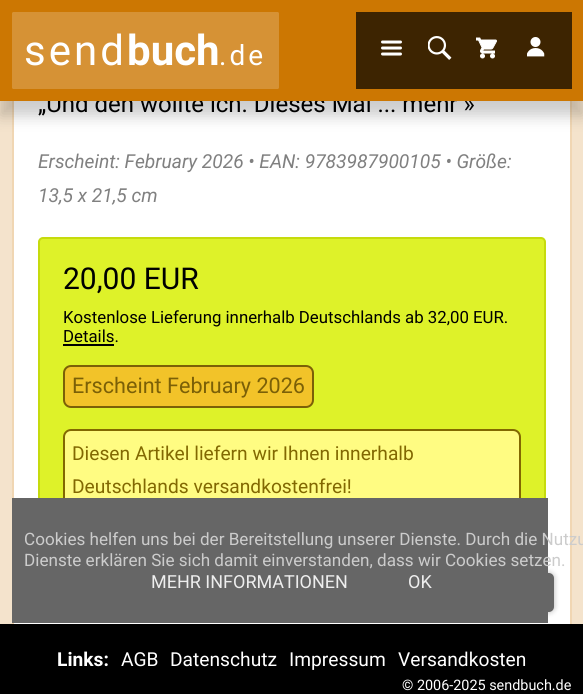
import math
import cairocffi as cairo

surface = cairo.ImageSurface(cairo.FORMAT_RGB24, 583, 694)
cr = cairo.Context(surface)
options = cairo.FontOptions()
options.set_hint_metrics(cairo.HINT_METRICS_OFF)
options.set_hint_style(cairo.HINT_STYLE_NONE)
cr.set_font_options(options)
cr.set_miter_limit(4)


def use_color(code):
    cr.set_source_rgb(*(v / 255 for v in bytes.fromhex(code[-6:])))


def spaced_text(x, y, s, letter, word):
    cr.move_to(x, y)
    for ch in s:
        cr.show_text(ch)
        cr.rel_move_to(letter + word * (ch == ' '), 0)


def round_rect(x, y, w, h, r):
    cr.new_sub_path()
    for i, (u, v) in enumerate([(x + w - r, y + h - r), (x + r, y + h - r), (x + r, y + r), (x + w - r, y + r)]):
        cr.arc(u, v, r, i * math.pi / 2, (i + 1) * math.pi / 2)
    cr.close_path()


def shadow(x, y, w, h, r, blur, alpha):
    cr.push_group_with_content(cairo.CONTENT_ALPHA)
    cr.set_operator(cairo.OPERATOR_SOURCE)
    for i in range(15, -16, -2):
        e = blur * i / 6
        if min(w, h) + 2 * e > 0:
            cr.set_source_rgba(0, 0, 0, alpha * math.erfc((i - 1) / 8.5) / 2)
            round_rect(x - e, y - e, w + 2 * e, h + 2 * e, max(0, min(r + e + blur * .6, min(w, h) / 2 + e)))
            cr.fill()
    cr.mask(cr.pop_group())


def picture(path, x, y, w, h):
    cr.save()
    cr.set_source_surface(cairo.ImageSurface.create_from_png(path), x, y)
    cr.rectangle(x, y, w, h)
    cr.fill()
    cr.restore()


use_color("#f4e3cc")
cr.paint()
use_color("#ffffff")
cr.rectangle(12, 101, 560, 523)
cr.fill()
cr.rectangle(13, -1, 558, 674)
cr.set_source_rgba(0.8, 0.467, 0.008, 0.3)
cr.stroke()
use_color("#000000")
shadow(0, 15, 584, 101, 0, 7.5, 0.2)
cr.select_font_face("Roboto")
cr.set_font_size(24)
use_color("#000000")
cr.move_to(38, 112)
cr.show_text("„Und den wollte ich. Dieses Mal ... mehr »")
use_color("#cc7702")
cr.rectangle(0, 0, 583, 101)
cr.fill()
use_color("#d69235")
round_rect(12, 12, 267, 77, 1.5)
cr.fill()
cr.set_font_size(42)
use_color("#ffffff")
spaced_text(24, 65, "send", 3, 0)
cr.select_font_face("Roboto", cairo.FONT_SLANT_NORMAL, cairo.FONT_WEIGHT_BOLD)
cr.move_to(127, 65)
cr.show_text("buch")
cr.select_font_face("Roboto")
cr.set_font_size(28)
spaced_text(219, 65, ".de", 3, 0)
use_color("#3d2401")
cr.rectangle(356, 12, 216, 77)
cr.fill()
picture("img1.png", 381, 40, 21, 16)
picture("img2.png", 428, 36, 24, 24)
picture("img3.png", 476, 37, 21, 22)
picture("img4.png", 527, 37, 18, 20)
cr.select_font_face("Roboto", cairo.FONT_SLANT_ITALIC)
cr.set_font_size(19.2)
use_color("#808080")
cr.move_to(38, 168)
cr.show_text("Erscheint: February 2026 • EAN: 9783987900105 • Größe:")
cr.move_to(38, 202)
cr.show_text("13,5 x 21,5 cm")
use_color("#def229")
round_rect(39, 238, 506, 379, 4)
cr.fill_preserve()
use_color("#c6db0d")
cr.stroke()
cr.select_font_face("Roboto")
cr.set_font_size(30)
use_color("#000000")
cr.move_to(63, 289)
cr.show_text("20,00 EUR")
cr.set_font_size(16.8)
cr.move_to(63, 323)
cr.show_text("Kostenlose Lieferung innerhalb Deutschlands ab 32,00 EUR.")
cr.move_to(63, 342)
cr.show_text("Details.")
cr.rectangle(63, 344, 51, 2)
cr.fill()
use_color("#f2c329")
round_rect(64, 366, 249, 41, 7)
cr.fill_preserve()
use_color("#7b6007")
cr.stroke()
cr.set_font_size(21.6)
cr.move_to(72, 393)
cr.show_text("Erscheint February 2026")
use_color("#fffc82")
round_rect(64, 430, 456, 82, 7)
cr.fill_preserve()
use_color("#826801")
cr.stroke()
cr.set_font_size(19.2)
cr.move_to(72, 460)
cr.show_text("Diesen Artikel liefern wir Ihnen innerhalb")
cr.move_to(72, 493)
cr.show_text("Deutschlands versandkostenfrei!")
cr.save()
cr.set_fill_rule(cairo.FILL_RULE_EVEN_ODD)
cr.new_path()
cr.move_to(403, 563)
cr.line_to(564, 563)
cr.line_to(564, 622)
cr.line_to(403, 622)
cr.close_path()
cr.move_to(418, 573)
cr.line_to(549, 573)
cr.curve_to(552, 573, 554, 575, 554, 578)
cr.line_to(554, 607)
cr.curve_to(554, 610, 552, 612, 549, 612)
cr.line_to(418, 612)
cr.curve_to(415, 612, 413, 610, 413, 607)
cr.line_to(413, 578)
cr.curve_to(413, 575, 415, 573, 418, 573)
cr.close_path()
cr.clip()
use_color("#000000")
shadow(413, 573, 141, 39, 5, 3, 0.3)
cr.restore()
cr.set_source_rgba(0, 0, 0, 0.6)
round_rect(413, 573, 141, 39, 5)
cr.fill()
use_color("#666666")
cr.rectangle(12, 498, 536, 125)
cr.fill()
cr.set_font_size(17.1)
use_color("#cccccc")
cr.move_to(24, 545)
cr.show_text("Cookies helfen uns bei der Bereitstellung unserer Dienste. Durch die Nutzu")
cr.move_to(24, 566)
cr.show_text("Dienste erklären Sie sich damit einverstanden, dass wir Cookies setzen.")
cr.set_font_size(18)
use_color("#eeeeee")
cr.move_to(151, 588)
cr.show_text("MEHR INFORMATIONEN")
cr.move_to(408, 588)
cr.show_text("OK")
use_color("#000000")
cr.rectangle(0, 624, 583, 70)
cr.fill()
cr.select_font_face("Roboto", cairo.FONT_SLANT_NORMAL, cairo.FONT_WEIGHT_BOLD)
cr.set_font_size(19.2)
use_color("#ffffff")
cr.move_to(57, 666)
cr.show_text("Links:")
cr.select_font_face("Roboto")
cr.move_to(121, 666)
cr.show_text("AGB")
cr.move_to(170, 666)
cr.show_text("Datenschutz")
cr.move_to(289, 666)
cr.show_text("Impressum")
cr.move_to(398, 666)
cr.show_text("Versandkosten")
cr.set_font_size(14.4)
cr.move_to(402, 690)
cr.show_text("© 2006-2025 sendbuch.de")
surface.write_to_png("result.png")
